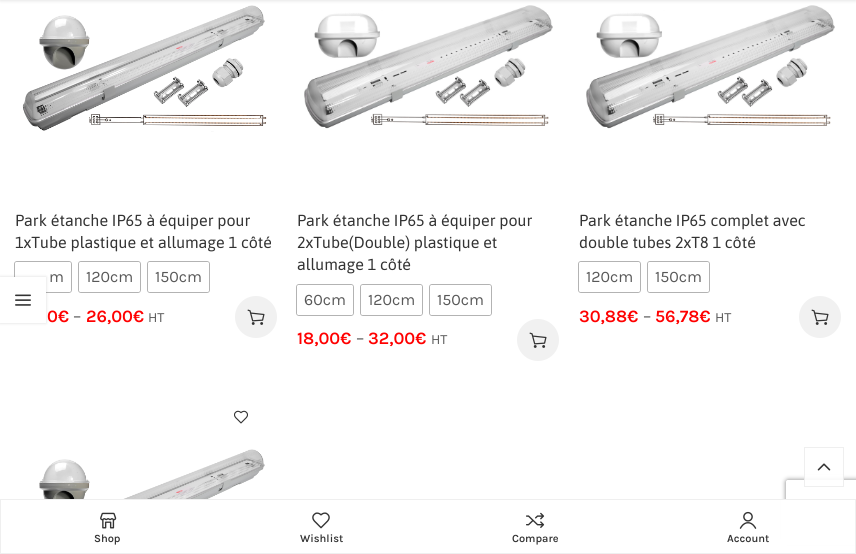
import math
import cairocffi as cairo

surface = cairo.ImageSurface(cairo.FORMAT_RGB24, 856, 554)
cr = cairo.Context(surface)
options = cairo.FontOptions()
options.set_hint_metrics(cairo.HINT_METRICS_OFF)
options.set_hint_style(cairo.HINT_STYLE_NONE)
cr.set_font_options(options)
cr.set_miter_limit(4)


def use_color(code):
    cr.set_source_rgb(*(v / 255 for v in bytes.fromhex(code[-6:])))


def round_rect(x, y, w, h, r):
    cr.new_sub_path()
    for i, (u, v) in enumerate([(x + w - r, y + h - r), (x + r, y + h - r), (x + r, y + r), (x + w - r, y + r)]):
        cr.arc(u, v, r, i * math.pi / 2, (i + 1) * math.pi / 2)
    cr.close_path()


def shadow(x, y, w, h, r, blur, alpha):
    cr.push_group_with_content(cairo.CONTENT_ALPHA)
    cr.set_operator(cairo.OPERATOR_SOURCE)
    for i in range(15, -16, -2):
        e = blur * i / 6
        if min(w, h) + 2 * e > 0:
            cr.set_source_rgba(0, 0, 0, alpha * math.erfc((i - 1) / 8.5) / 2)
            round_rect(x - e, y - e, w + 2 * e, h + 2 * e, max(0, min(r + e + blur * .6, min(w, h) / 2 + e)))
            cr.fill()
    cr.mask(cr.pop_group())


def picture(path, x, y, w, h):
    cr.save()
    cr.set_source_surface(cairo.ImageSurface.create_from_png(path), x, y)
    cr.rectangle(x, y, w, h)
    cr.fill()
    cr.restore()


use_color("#ffffff")
cr.paint()
picture("img1.png", 22, 5, 245, 127)
picture("img3.png", 304, 5, 249, 124)
picture("img4.png", 586, 5, 249, 124)
use_color("#000000")
shadow(0, -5, 856, 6, 0, 1.5, 0.1)
cr.select_font_face("Asap")
cr.set_font_size(16)
use_color("#333333")
cr.move_to(15, 226)
cr.show_text("Park étanche IP65 à équiper pour")
cr.move_to(15, 248)
cr.show_text("1xTube plastique et allumage 1 côté")
round_rect(14.5, 261.5, 57, 31, 2.5)
use_color("#b3b3b3")
cr.set_line_width(1)
cr.stroke()
use_color("#ffffff")
round_rect(15, 262, 56, 30, 2)
cr.fill()
cr.select_font_face("Karla")
use_color("#585858")
cr.move_to(49, 282)
cr.show_text("m")
round_rect(78.5, 261.5, 62, 31, 2.5)
use_color("#b3b3b3")
cr.stroke()
use_color("#ffffff")
round_rect(79, 262, 61, 30, 2)
cr.fill()
use_color("#585858")
cr.move_to(86, 282)
cr.show_text("120cm")
round_rect(147.5, 261.5, 62, 31, 2.5)
use_color("#b3b3b3")
cr.stroke()
use_color("#ffffff")
round_rect(148, 262, 61, 30, 2)
cr.fill()
use_color("#585858")
cr.move_to(155, 282)
cr.show_text("150cm")
cr.select_font_face("Karla SemiBold")
cr.set_font_size(17.5)
use_color("#ff0000")
cr.move_to(47, 322)
cr.show_text("0€")
cr.select_font_face("Karla")
use_color("#585858")
cr.move_to(73, 322)
cr.show_text("–")
cr.select_font_face("Karla SemiBold")
use_color("#ff0000")
cr.move_to(86, 322)
cr.show_text("26,00€")
cr.select_font_face("Karla")
cr.set_font_size(14)
use_color("#585858")
cr.move_to(148, 322)
cr.show_text("HT")
use_color("#f1f1f1")
cr.new_path()
cr.arc(256, 317, 21, 0, 2 * math.pi)
cr.fill()
picture("img2.png", 247, 309, 18, 16)
cr.select_font_face("Asap")
cr.set_font_size(16)
use_color("#333333")
cr.move_to(297, 226)
cr.show_text("Park étanche IP65 à équiper pour")
cr.move_to(297, 248)
cr.show_text("2xTube(Double) plastique et")
cr.move_to(297, 270)
cr.show_text("allumage 1 côté")
round_rect(296.5, 284.5, 57, 31, 2.5)
use_color("#b3b3b3")
cr.stroke()
use_color("#ffffff")
round_rect(297, 285, 56, 30, 2)
cr.fill()
cr.select_font_face("Karla")
use_color("#585858")
cr.move_to(304, 305)
cr.show_text("60cm")
round_rect(360.5, 284.5, 62, 31, 2.5)
use_color("#b3b3b3")
cr.stroke()
use_color("#ffffff")
round_rect(361, 285, 61, 30, 2)
cr.fill()
use_color("#585858")
cr.move_to(368, 305)
cr.show_text("120cm")
round_rect(429.5, 284.5, 62, 31, 2.5)
use_color("#b3b3b3")
cr.stroke()
use_color("#ffffff")
round_rect(430, 285, 61, 30, 2)
cr.fill()
use_color("#585858")
cr.move_to(437, 305)
cr.show_text("150cm")
cr.select_font_face("Karla SemiBold")
cr.set_font_size(17.5)
use_color("#ff0000")
cr.move_to(297, 344)
cr.show_text("18,00€")
cr.select_font_face("Karla")
use_color("#585858")
cr.move_to(356, 344)
cr.show_text("–")
cr.select_font_face("Karla SemiBold")
use_color("#ff0000")
cr.move_to(368, 344)
cr.show_text("32,00€")
cr.select_font_face("Karla")
cr.set_font_size(14)
use_color("#585858")
cr.move_to(431, 344)
cr.show_text("HT")
use_color("#f1f1f1")
cr.new_path()
cr.arc(538, 340, 21, 0, 2 * math.pi)
cr.fill()
picture("img2.png", 529, 332, 18, 16)
cr.select_font_face("Asap")
cr.set_font_size(16)
use_color("#333333")
cr.move_to(579, 226)
cr.show_text("Park étanche IP65 complet avec")
cr.move_to(579, 248)
cr.show_text("double tubes 2xT8 1 côté")
round_rect(578.5, 261.5, 62, 31, 2.5)
use_color("#b3b3b3")
cr.stroke()
use_color("#ffffff")
round_rect(579, 262, 61, 30, 2)
cr.fill()
cr.select_font_face("Karla")
use_color("#585858")
cr.move_to(586, 282)
cr.show_text("120cm")
round_rect(647.5, 261.5, 62, 31, 2.5)
use_color("#b3b3b3")
cr.stroke()
use_color("#ffffff")
round_rect(648, 262, 61, 30, 2)
cr.fill()
use_color("#585858")
cr.move_to(655, 282)
cr.show_text("150cm")
cr.select_font_face("Karla SemiBold")
cr.set_font_size(17.5)
use_color("#ff0000")
cr.move_to(579, 322)
cr.show_text("30,88€")
cr.select_font_face("Karla")
use_color("#585858")
cr.move_to(643, 322)
cr.show_text("–")
cr.select_font_face("Karla SemiBold")
use_color("#ff0000")
cr.move_to(655, 322)
cr.show_text("56,78€")
cr.select_font_face("Karla")
cr.set_font_size(14)
use_color("#585858")
cr.move_to(715, 322)
cr.show_text("HT")
use_color("#f1f1f1")
cr.new_path()
cr.arc(820, 317, 21, 0, 2 * math.pi)
cr.fill()
picture("img2.png", 811, 309, 18, 16)
picture("img5.png", 234, 410, 14, 14)
picture("img6.png", 22, 449, 243, 50)
use_color("#000000")
shadow(0, 277, 46, 46, 0, 1.5, 0.15)
use_color("#ffffff")
cr.rectangle(0, 277, 46, 46)
cr.fill()
picture("img7.png", 15, 294, 16, 12)
cr.save()
cr.set_fill_rule(cairo.FILL_RULE_EVEN_ODD)
cr.new_path()
cr.move_to(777, 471)
cr.line_to(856, 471)
cr.line_to(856, 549)
cr.line_to(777, 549)
cr.close_path()
cr.move_to(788, 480)
cr.line_to(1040, 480)
cr.curve_to(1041, 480, 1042, 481, 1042, 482)
cr.line_to(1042, 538)
cr.curve_to(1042, 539, 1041, 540, 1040, 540)
cr.line_to(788, 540)
cr.curve_to(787, 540, 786, 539, 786, 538)
cr.line_to(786, 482)
cr.curve_to(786, 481, 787, 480, 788, 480)
cr.close_path()
cr.clip()
use_color("#808080")
shadow(786, 480, 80, 60, 2, 2.5, 1)
cr.restore()
cr.set_source_rgba(1, 1, 1, 0.9)
cr.rectangle(804, 475, 40, 5)
cr.fill()
cr.rectangle(804.5, 447.5, 39, 39)
cr.set_source_rgba(0.467, 0.467, 0.467, 0.12)
cr.stroke()
picture("img8.png", 817, 463, 14, 8)
use_color("#ffffff")
cr.rectangle(781, 500, 74, 45)
cr.fill()
cr.rectangle(0.5, 499.5, 855, 54)
use_color("#efefef")
cr.stroke()
picture("img9.png", 100, 512, 17, 17)
cr.select_font_face("Karla SemiBold")
cr.set_font_size(11)
use_color("#333333")
cr.move_to(94, 542)
cr.show_text("Shop")
picture("img10.png", 312, 512, 18, 17)
cr.move_to(300, 542)
cr.show_text("Wishlist")
picture("img11.png", 526, 512, 19, 16)
cr.move_to(512, 542)
cr.show_text("Compare")
picture("img12.png", 739, 511, 18, 18)
cr.move_to(727, 542)
cr.show_text("Account")
surface.write_to_png("result.png")
